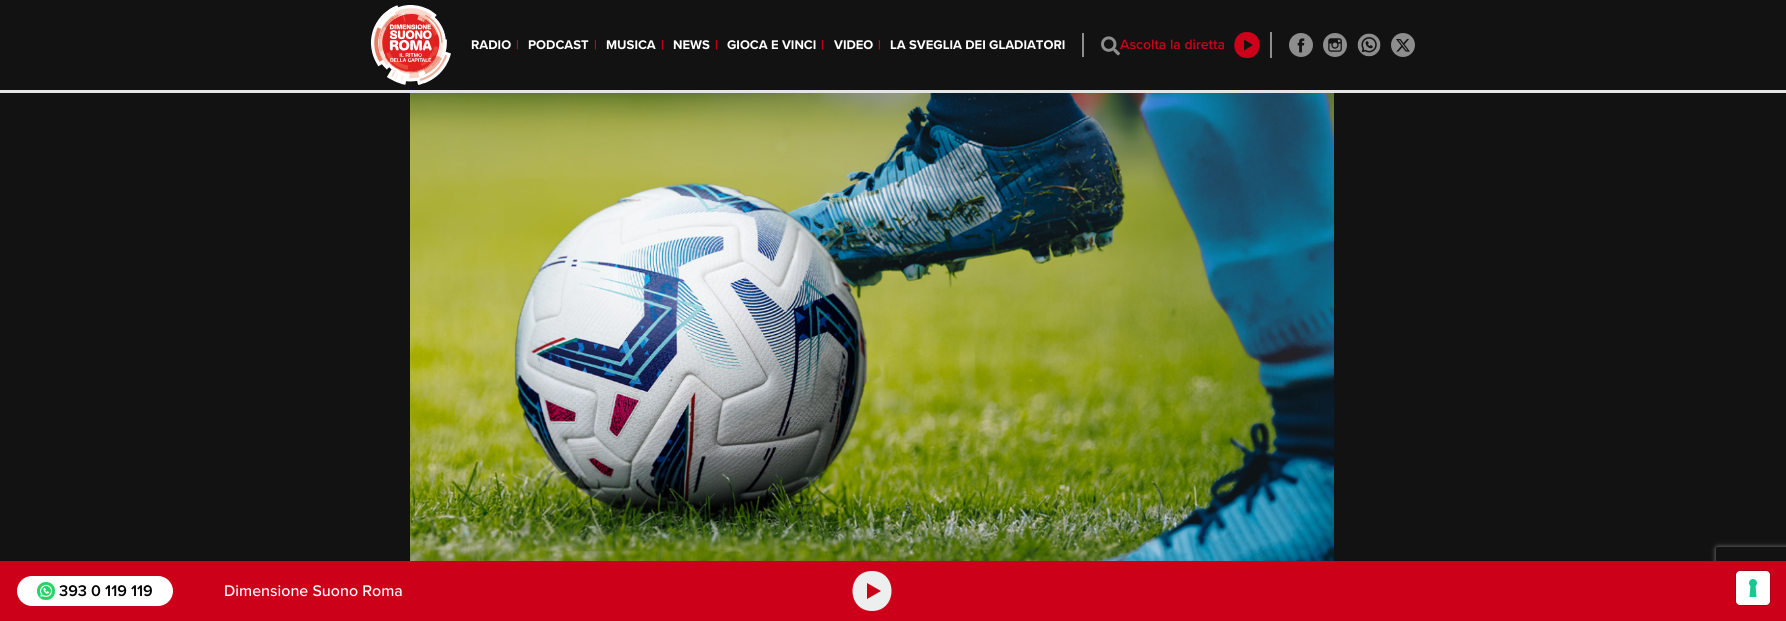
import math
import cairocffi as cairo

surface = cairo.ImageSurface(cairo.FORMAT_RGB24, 1786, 621)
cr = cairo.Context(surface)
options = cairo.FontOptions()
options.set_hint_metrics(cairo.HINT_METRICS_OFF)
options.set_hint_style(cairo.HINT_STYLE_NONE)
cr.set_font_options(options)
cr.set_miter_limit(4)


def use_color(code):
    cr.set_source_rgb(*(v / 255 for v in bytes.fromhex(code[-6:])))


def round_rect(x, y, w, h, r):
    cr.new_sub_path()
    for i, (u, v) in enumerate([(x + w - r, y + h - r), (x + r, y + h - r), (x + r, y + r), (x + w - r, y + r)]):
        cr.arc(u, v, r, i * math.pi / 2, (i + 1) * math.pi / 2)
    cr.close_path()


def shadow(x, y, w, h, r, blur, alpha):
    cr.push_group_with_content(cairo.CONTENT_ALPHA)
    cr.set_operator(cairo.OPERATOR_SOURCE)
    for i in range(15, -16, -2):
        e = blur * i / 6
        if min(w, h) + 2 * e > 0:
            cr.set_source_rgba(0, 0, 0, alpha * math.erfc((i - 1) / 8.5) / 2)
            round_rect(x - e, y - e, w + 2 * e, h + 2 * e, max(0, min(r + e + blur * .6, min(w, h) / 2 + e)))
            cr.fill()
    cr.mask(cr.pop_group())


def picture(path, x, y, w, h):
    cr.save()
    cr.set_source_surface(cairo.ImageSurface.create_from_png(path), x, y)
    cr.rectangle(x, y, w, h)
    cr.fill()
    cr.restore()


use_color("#121212")
cr.paint()
use_color("#e5e5e5")
cr.rectangle(0, 90, 1786, 3)
cr.fill()
picture("img1.png", 371, 5, 80, 80)
cr.select_font_face("Proxima Nova", cairo.FONT_SLANT_NORMAL, cairo.FONT_WEIGHT_BOLD)
cr.set_font_size(13)
use_color("#ffffff")
cr.move_to(471, 49)
cr.show_text("RADIO")
use_color("#cc0019")
cr.move_to(516, 49)
cr.show_text("|")
use_color("#ffffff")
cr.move_to(528, 49)
cr.show_text("PODCAST")
use_color("#cc0019")
cr.move_to(594, 49)
cr.show_text("|")
use_color("#ffffff")
cr.move_to(606, 49)
cr.show_text("MUSICA")
use_color("#cc0019")
cr.move_to(661, 49)
cr.show_text("|")
use_color("#ffffff")
cr.move_to(673, 49)
cr.show_text("NEWS")
use_color("#cc0019")
cr.move_to(715, 49)
cr.show_text("|")
use_color("#ffffff")
cr.move_to(727, 49)
cr.show_text("GIOCA E VINCI")
use_color("#cc0019")
cr.move_to(821, 49)
cr.show_text("|")
use_color("#ffffff")
cr.move_to(834, 49)
cr.show_text("VIDEO")
use_color("#cc0019")
cr.move_to(878, 49)
cr.show_text("|")
use_color("#ffffff")
cr.move_to(890, 49)
cr.show_text("LA SVEGLIA DEI GLADIATORI")
use_color("#8d8d8d")
cr.rectangle(1082, 33, 2, 24)
cr.fill()
picture("img2.png", 1101, 36, 19, 20)
cr.rectangle(1270, 32, 2, 26)
cr.fill()
cr.select_font_face("Proxima Nova SemiBold")
cr.set_font_size(14)
use_color("#cc0019")
cr.move_to(1120, 49)
cr.show_text("Ascolta la diretta")
cr.new_path()
cr.move_to(1247, 32)
cr.curve_to(1230, 32, 1230, 58, 1247, 58)
cr.curve_to(1264, 58, 1264, 32, 1247, 32)
cr.close_path()
cr.move_to(1244, 50.5)
cr.line_to(1244, 39.5)
cr.line_to(1253, 45)
cr.close_path()
cr.fill()
picture("img3.png", 1289, 33, 24, 24)
picture("img4.png", 1323, 33, 24, 24)
picture("img5.png", 1357, 33, 24, 24)
picture("img6.png", 1391, 33, 24, 24)
picture("img7.png", 410, 93, 924, 468)
cr.save()
cr.set_fill_rule(cairo.FILL_RULE_EVEN_ODD)
cr.new_path()
cr.move_to(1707, 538)
cr.line_to(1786, 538)
cr.line_to(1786, 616)
cr.line_to(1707, 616)
cr.close_path()
cr.move_to(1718, 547)
cr.line_to(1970, 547)
cr.curve_to(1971, 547, 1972, 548, 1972, 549)
cr.line_to(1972, 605)
cr.curve_to(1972, 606, 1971, 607, 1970, 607)
cr.line_to(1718, 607)
cr.curve_to(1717, 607, 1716, 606, 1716, 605)
cr.line_to(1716, 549)
cr.curve_to(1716, 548, 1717, 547, 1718, 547)
cr.close_path()
cr.clip()
use_color("#808080")
shadow(1716, 547, 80, 60, 2, 2.5, 1)
cr.restore()
cr.rectangle(0, 561, 1786, 60)
cr.fill()
use_color("#ffffff")
round_rect(17, 576, 156, 30, 15)
cr.fill()
picture("img8.png", 37, 582, 18, 18)
cr.set_font_size(16)
use_color("#000000")
cr.move_to(59, 596)
cr.show_text("393 0 119 119")
cr.select_font_face("Proxima Nova Medium")
use_color("#ffffff")
cr.move_to(224, 596)
cr.show_text("Dimensione Suono Roma")
use_color("#edefee")
cr.new_path()
cr.move_to(872, 571)
cr.curve_to(846, 571, 846, 611, 872, 611)
cr.curve_to(898, 611, 898, 571, 872, 571)
cr.close_path()
cr.move_to(867, 599)
cr.line_to(867, 583)
cr.line_to(881, 591)
cr.close_path()
cr.fill()
round_rect(1735.5, 570.5, 35, 35, 4.5)
use_color("#ad0015")
cr.set_line_width(1)
cr.stroke()
use_color("#ffffff")
round_rect(1736, 571, 34, 34, 4)
cr.fill()
picture("img9.png", 1749, 579, 8, 18)
surface.write_to_png("result.png")
